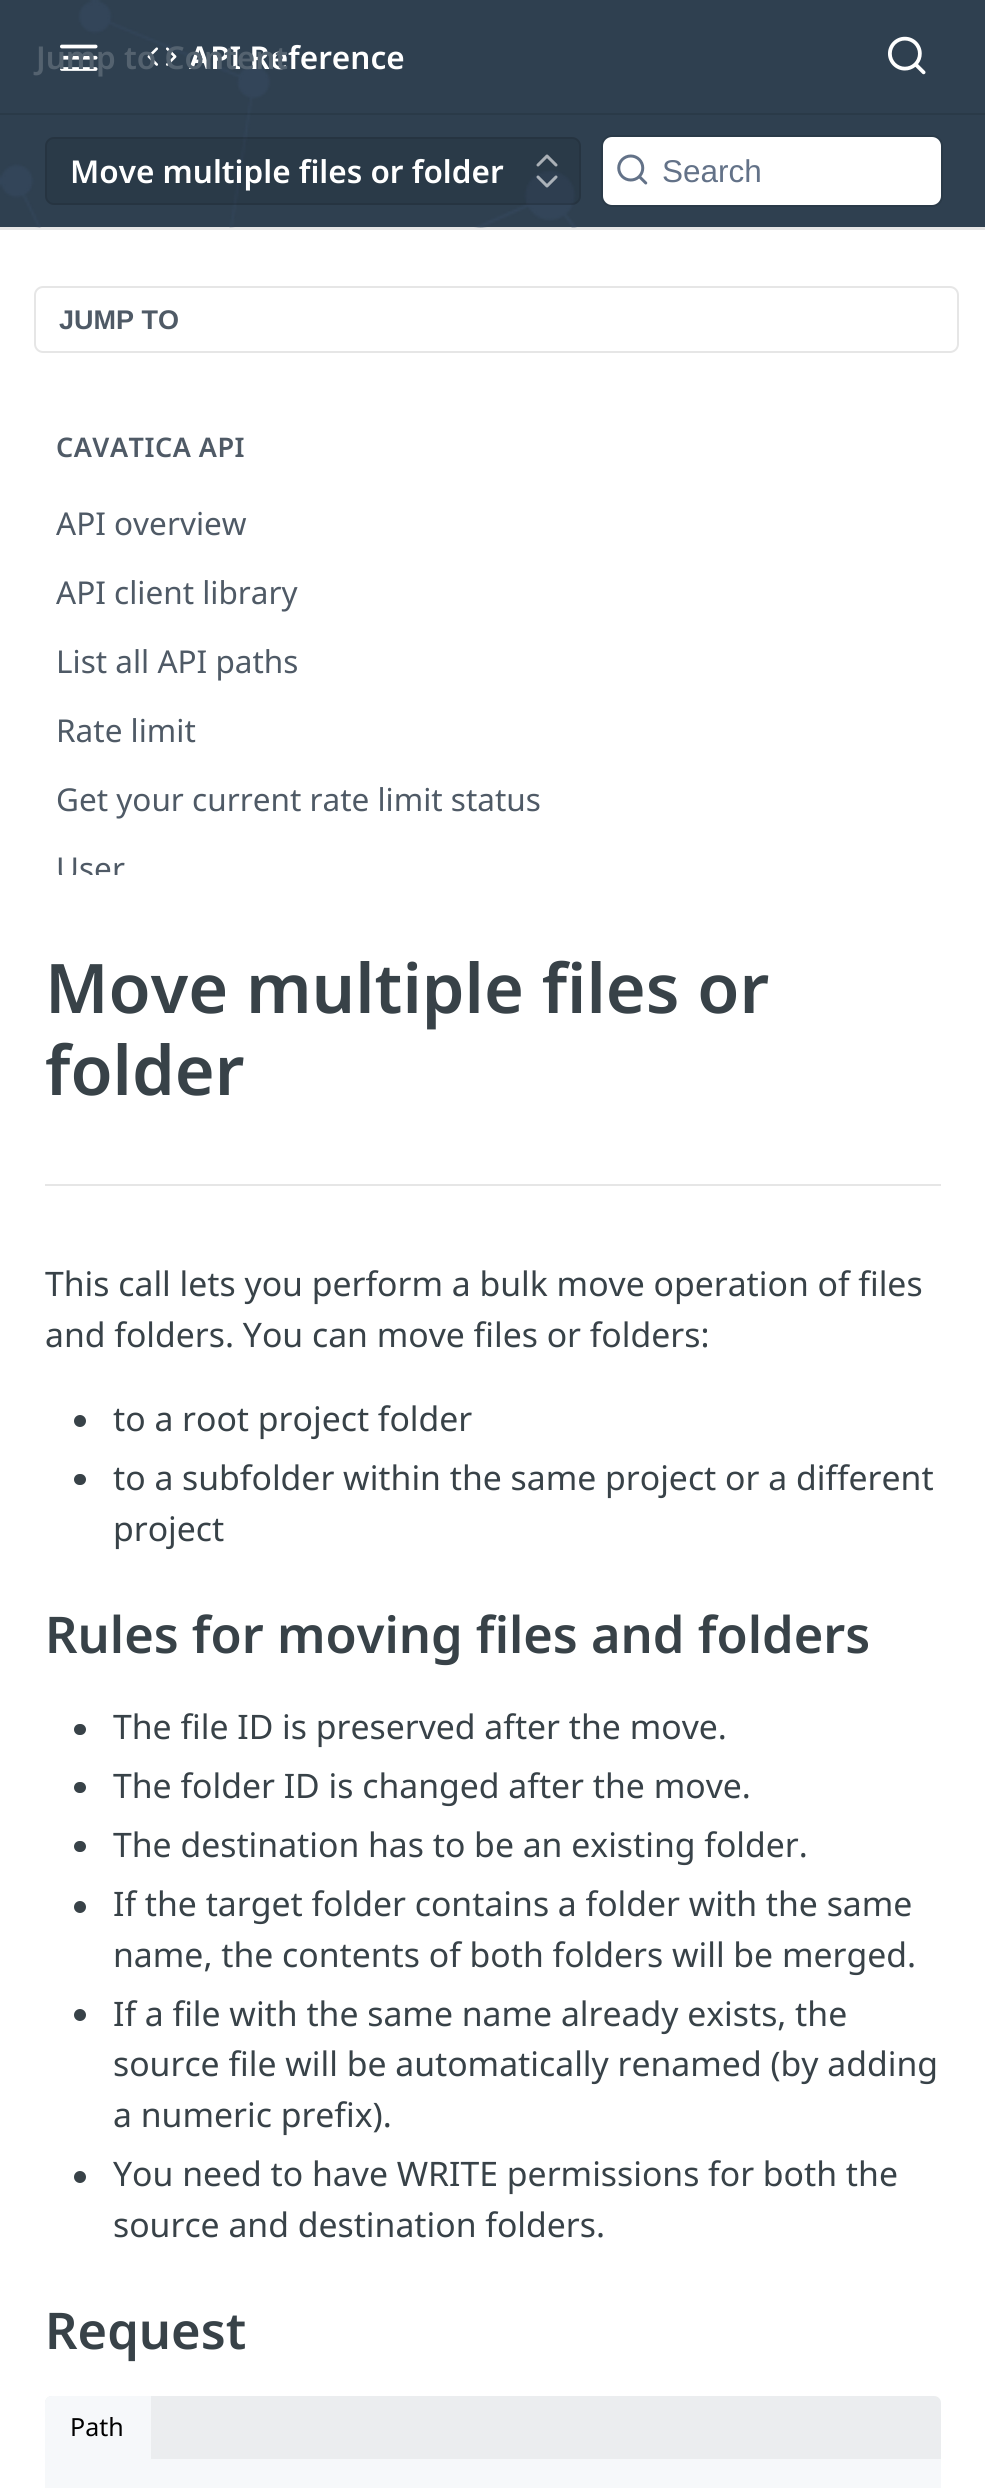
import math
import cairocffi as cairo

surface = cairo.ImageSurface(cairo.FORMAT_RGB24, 985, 2488)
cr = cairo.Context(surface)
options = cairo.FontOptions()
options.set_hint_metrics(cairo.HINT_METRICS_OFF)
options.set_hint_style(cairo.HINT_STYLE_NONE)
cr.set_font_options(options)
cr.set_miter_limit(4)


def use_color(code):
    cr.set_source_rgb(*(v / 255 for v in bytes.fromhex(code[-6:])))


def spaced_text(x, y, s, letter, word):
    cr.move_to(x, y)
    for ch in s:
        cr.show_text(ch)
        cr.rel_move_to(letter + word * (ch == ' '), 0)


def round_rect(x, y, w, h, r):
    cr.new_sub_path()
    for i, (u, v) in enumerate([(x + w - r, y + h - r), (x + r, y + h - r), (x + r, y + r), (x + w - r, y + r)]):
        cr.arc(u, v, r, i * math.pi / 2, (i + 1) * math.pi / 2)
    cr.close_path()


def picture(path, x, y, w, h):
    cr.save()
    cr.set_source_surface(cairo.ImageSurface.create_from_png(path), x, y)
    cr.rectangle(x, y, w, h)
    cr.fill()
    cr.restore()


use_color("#ffffff")
cr.paint()
use_color("#e6e6e6")
cr.new_path()
cr.move_to(0, 227)
cr.line_to(0, 230)
cr.line_to(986, 230)
cr.line_to(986, 2)
cr.line_to(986, 227)
cr.close_path()
cr.fill()
use_color("#2f4050")
cr.rectangle(0, 0, 985, 227)
cr.fill()
picture("img1.png", 0, 0, 577, 228)
cr.set_source_rgba(0, 0, 0, 0.1)
cr.rectangle(0, 113, 985, 2)
cr.fill()
picture("img2.png", 60, 44, 38, 27)
picture("img3.png", 147, 47, 30, 19)
cr.select_font_face("Noto Sans SemiBold")
cr.set_font_size(31.5)
use_color("#ffffff")
cr.move_to(189, 69)
cr.show_text("API Reference")
use_color("#54626f")
cr.move_to(36, 69)
cr.show_text("Jump to Content")
picture("img4.png", 888, 36, 38, 39)
cr.set_source_rgba(0, 0, 0, 0.1)
round_rect(45, 137, 536, 68, 9)
cr.fill()
round_rect(46, 138, 534, 66, 8)
cr.stroke()
use_color("#ffffff")
cr.move_to(70, 183)
cr.show_text("Move multiple files or folder")
cr.new_path()
cr.move_to(538, 177)
cr.line_to(547, 186)
cr.line_to(556, 177)
cr.move_to(556, 165)
cr.line_to(547, 156)
cr.line_to(538, 165)
cr.set_source_rgba(1, 1, 1, 0.6)
cr.set_line_width(3)
cr.set_line_cap(cairo.LINE_CAP_ROUND)
cr.set_line_join(cairo.LINE_JOIN_ROUND)
cr.stroke()
round_rect(602, 136, 340, 70, 10)
use_color("#2a3a48")
cr.set_line_width(2)
cr.set_line_cap(cairo.LINE_CAP_BUTT)
cr.set_line_join(cairo.LINE_JOIN_MITER)
cr.stroke()
use_color("#ffffff")
round_rect(603, 137, 338, 68, 9)
cr.fill()
picture("img5.png", 617, 154, 31, 31)
cr.select_font_face("Liberation Sans")
use_color("#637288")
cr.move_to(662, 182)
cr.show_text("Search")
round_rect(35, 287, 923, 65, 8)
use_color("#e6e6e6")
cr.stroke()
cr.select_font_face("Liberation Sans", cairo.FONT_SLANT_NORMAL, cairo.FONT_WEIGHT_BOLD)
cr.set_font_size(27)
use_color("#4f5a66")
cr.move_to(59, 329)
cr.show_text("JUMP TO")
cr.select_font_face("Noto Sans SemiBold")
spaced_text(56, 457, "CAVATICA API", 0.5, 0)
cr.select_font_face("Noto Sans")
cr.set_font_size(31.5)
cr.move_to(56, 535)
cr.show_text("API overview")
cr.move_to(56, 604)
cr.show_text("API client library")
cr.move_to(56, 673)
cr.show_text("List all API paths")
cr.move_to(56, 742)
cr.show_text("Rate limit")
cr.move_to(56, 811)
cr.show_text("Get your current rate limit status")
cr.save()
cr.rectangle(0, 227, 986, 648)
cr.clip()
cr.move_to(56, 880)
cr.show_text("User")
cr.restore()
use_color("#e6e6e6")
cr.rectangle(45, 1184, 896, 2)
cr.fill()
cr.select_font_face("Noto Sans SemiBold")
cr.set_font_size(68.4)
use_color("#384248")
cr.move_to(45, 1013)
cr.show_text("Move multiple files or")
cr.move_to(45, 1095)
cr.show_text("folder")
cr.select_font_face("Noto Sans")
cr.set_font_size(33.75)
cr.move_to(45, 1296)
cr.show_text("This call lets you perform a bulk move operation of files")
cr.move_to(45, 1347)
cr.show_text("and folders. You can move files or folders:")
cr.new_path()
cr.arc(80, 1421, 6, 0, 2 * math.pi)
cr.fill()
cr.move_to(113, 1431)
cr.show_text("to a root project folder")
round_rect(74, 1474, 12, 11, 5.5)
cr.fill()
cr.move_to(113, 1490)
cr.show_text("to a subfolder within the same project or a different")
cr.move_to(113, 1541)
cr.show_text("project")
cr.select_font_face("Noto Sans SemiBold")
cr.set_font_size(50.6)
cr.move_to(45, 1653)
cr.show_text("Rules for moving files and folders")
round_rect(74, 1724, 12, 11, 5.5)
cr.fill()
cr.select_font_face("Noto Sans")
cr.set_font_size(33.75)
cr.move_to(113, 1739)
cr.show_text("The file ID is preserved after the move.")
round_rect(74, 1782, 12, 11, 5.5)
cr.fill()
cr.move_to(113, 1798)
cr.show_text("The folder ID is changed after the move.")
round_rect(74, 1841, 12, 11, 5.5)
cr.fill()
cr.move_to(113, 1857)
cr.show_text("The destination has to be an existing folder.")
cr.new_path()
cr.arc(80, 1907, 6, 0, 2 * math.pi)
cr.fill()
cr.move_to(113, 1916)
cr.show_text("If the target folder contains a folder with the same")
cr.move_to(113, 1967)
cr.show_text("name, the contents of both folders will be merged.")
cr.new_path()
cr.arc(80, 2015, 6, 0, 2 * math.pi)
cr.fill()
cr.move_to(113, 2026)
cr.show_text("If a file with the same name already exists, the")
cr.move_to(113, 2076)
cr.show_text("source file will be automatically renamed (by adding")
cr.move_to(113, 2127)
cr.show_text("a numeric prefix).")
cr.new_path()
cr.arc(80, 2177, 6, 0, 2 * math.pi)
cr.fill()
cr.move_to(113, 2186)
cr.show_text("You need to have WRITE permissions for both the")
cr.move_to(113, 2237)
cr.show_text("source and destination folders.")
cr.select_font_face("Noto Sans SemiBold")
cr.set_font_size(50.6)
cr.move_to(45, 2349)
cr.show_text("Request")
use_color("#ebedef")
cr.new_path()
cr.move_to(52, 2396)
cr.line_to(934, 2396)
cr.curve_to(938, 2396, 941, 2399, 941, 2403)
cr.line_to(941, 2459)
cr.line_to(45, 2459)
cr.line_to(45, 2403)
cr.curve_to(45, 2399, 48, 2396, 52, 2396)
cr.close_path()
cr.fill()
use_color("#f6f8fa")
cr.new_path()
cr.move_to(52, 2396)
cr.line_to(151, 2396)
cr.line_to(151, 2459)
cr.line_to(45, 2459)
cr.line_to(45, 2403)
cr.curve_to(45, 2399, 48, 2396, 52, 2396)
cr.close_path()
cr.fill()
cr.select_font_face("Noto Sans")
cr.set_font_size(25)
use_color("#000000")
cr.move_to(70, 2436)
cr.show_text("Path")
use_color("#f6f8fa")
cr.rectangle(45, 2459, 896, 29)
cr.fill()
surface.write_to_png("result.png")
